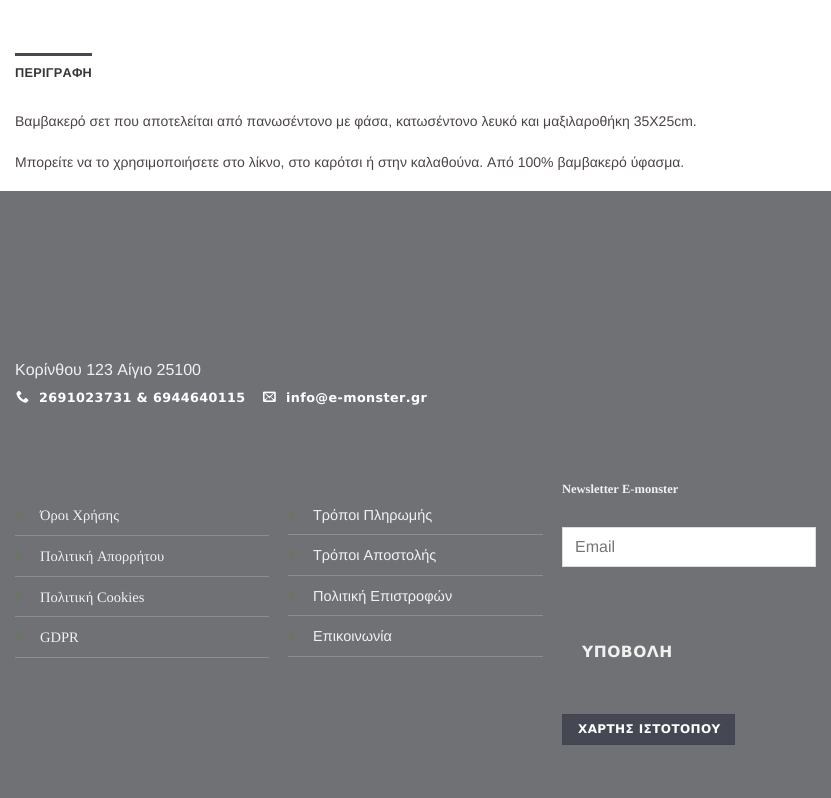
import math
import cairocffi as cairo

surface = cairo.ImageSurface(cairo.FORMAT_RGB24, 831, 798)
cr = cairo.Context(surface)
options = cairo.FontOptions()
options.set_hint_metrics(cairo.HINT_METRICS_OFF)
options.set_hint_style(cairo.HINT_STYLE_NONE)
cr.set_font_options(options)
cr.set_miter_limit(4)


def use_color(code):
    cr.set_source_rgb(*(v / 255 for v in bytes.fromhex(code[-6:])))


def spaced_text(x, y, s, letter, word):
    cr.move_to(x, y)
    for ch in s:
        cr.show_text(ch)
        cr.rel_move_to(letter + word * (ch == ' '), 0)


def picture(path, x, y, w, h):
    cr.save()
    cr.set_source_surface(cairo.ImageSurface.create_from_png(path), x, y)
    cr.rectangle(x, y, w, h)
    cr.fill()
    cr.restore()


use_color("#ffffff")
cr.paint()
use_color("#454853")
cr.rectangle(15, 53, 77, 3)
cr.fill()
cr.select_font_face("Liberation Sans", cairo.FONT_SLANT_NORMAL, cairo.FONT_WEIGHT_BOLD)
cr.set_font_size(12.75)
use_color("#363636")
spaced_text(15, 77, "ΠΕΡΙΓΡΑΦΗ", 0.25, 0)
cr.select_font_face("Liberation Sans")
cr.set_font_size(14)
use_color("#4b4443")
cr.move_to(15, 126)
cr.show_text("Βαμβακερό σετ που αποτελείται από πανωσέντονο με φάσα, κατωσέντονο λευκό και μαξιλαροθήκη 35Χ25cm.")
cr.move_to(15, 167)
cr.show_text("Μπορείτε να το χρησιμοποιήσετε στο λίκνο, στο καρότσι ή στην καλαθούνα. Από 100% βαμβακερό ύφασμα.")
use_color("#707175")
cr.rectangle(0, 191, 831, 607)
cr.fill()
cr.set_font_size(16)
use_color("#f1f1f1")
cr.move_to(15, 375)
cr.show_text("Κορίνθου 123 Αίγιο 25100")
picture("img1.png", 16, 390, 13, 13)
cr.select_font_face("DejaVu Sans", cairo.FONT_SLANT_NORMAL, cairo.FONT_WEIGHT_BOLD)
cr.set_font_size(12.75)
use_color("#ffffff")
spaced_text(39, 402, "2691023731 & 6944640115", 0.4, 0)
picture("img2.png", 263, 391, 13, 11)
spaced_text(286, 402, "info@e-monster.gr", 0.4, 0)
use_color("#8d8d91")
cr.rectangle(15, 535, 254, 1)
cr.fill()
picture("img3.png", 16, 509, 5, 10)
cr.select_font_face("Liberation Serif")
cr.set_font_size(14.5)
use_color("#f1f1f1")
cr.move_to(40, 520)
cr.show_text("Όροι Χρήσης")
use_color("#8d8d91")
cr.rectangle(15, 576, 254, 1)
cr.fill()
picture("img3.png", 16, 550, 5, 10)
use_color("#f1f1f1")
cr.move_to(40, 561)
cr.show_text("Πολιτική Απορρήτου")
use_color("#8d8d91")
cr.rectangle(15, 616, 254, 1)
cr.fill()
picture("img3.png", 16, 591, 5, 10)
use_color("#f1f1f1")
cr.move_to(40, 602)
cr.show_text("Πολιτική Cookies")
use_color("#8d8d91")
cr.rectangle(15, 657, 254, 1)
cr.fill()
picture("img3.png", 16, 631, 5, 10)
use_color("#f1f1f1")
cr.move_to(40, 642)
cr.show_text("GDPR")
use_color("#8d8d91")
cr.rectangle(288, 534, 255, 1)
cr.fill()
picture("img3.png", 289, 509, 5, 10)
cr.select_font_face("Liberation Sans")
use_color("#f1f1f1")
cr.move_to(313, 520)
cr.show_text("Τρόποι Πληρωμής")
use_color("#8d8d91")
cr.rectangle(288, 575, 255, 1)
cr.fill()
picture("img3.png", 289, 549, 5, 10)
use_color("#f1f1f1")
cr.move_to(313, 560)
cr.show_text("Τρόποι Αποστολής")
use_color("#8d8d91")
cr.rectangle(288, 615, 255, 1)
cr.fill()
picture("img3.png", 289, 590, 5, 10)
use_color("#f1f1f1")
cr.move_to(313, 601)
cr.show_text("Πολιτική Επιστροφών")
use_color("#8d8d91")
cr.rectangle(288, 656, 255, 1)
cr.fill()
picture("img3.png", 289, 630, 5, 10)
use_color("#f1f1f1")
cr.move_to(313, 641)
cr.show_text("Επικοινωνία")
cr.select_font_face("Liberation Serif", cairo.FONT_SLANT_NORMAL, cairo.FONT_WEIGHT_BOLD)
cr.set_font_size(12.5)
cr.move_to(562, 493)
cr.show_text("Newsletter E-monster")
use_color("#ffffff")
cr.rectangle(562.5, 527.5, 253, 39)
cr.fill_preserve()
use_color("#dddddd")
cr.set_line_width(1)
cr.stroke()
cr.select_font_face("Liberation Sans")
cr.set_font_size(16)
use_color("#757575")
cr.move_to(575, 552)
cr.show_text("Email")
cr.select_font_face("DejaVu Sans", cairo.FONT_SLANT_NORMAL, cairo.FONT_WEIGHT_BOLD)
cr.set_font_size(15.5)
use_color("#f1f1f1")
spaced_text(582, 657, "ΥΠΟΒΟΛΗ", 0.5, 0)
use_color("#454853")
cr.rectangle(562.5, 714.5, 172, 30)
cr.fill_preserve()
use_color("#42444f")
cr.stroke()
cr.set_font_size(12)
use_color("#ffffff")
spaced_text(578, 733, "ΧΑΡΤΗΣ ΙΣΤΟΤΟΠΟΥ", 0.4, 0)
surface.write_to_png("result.png")
